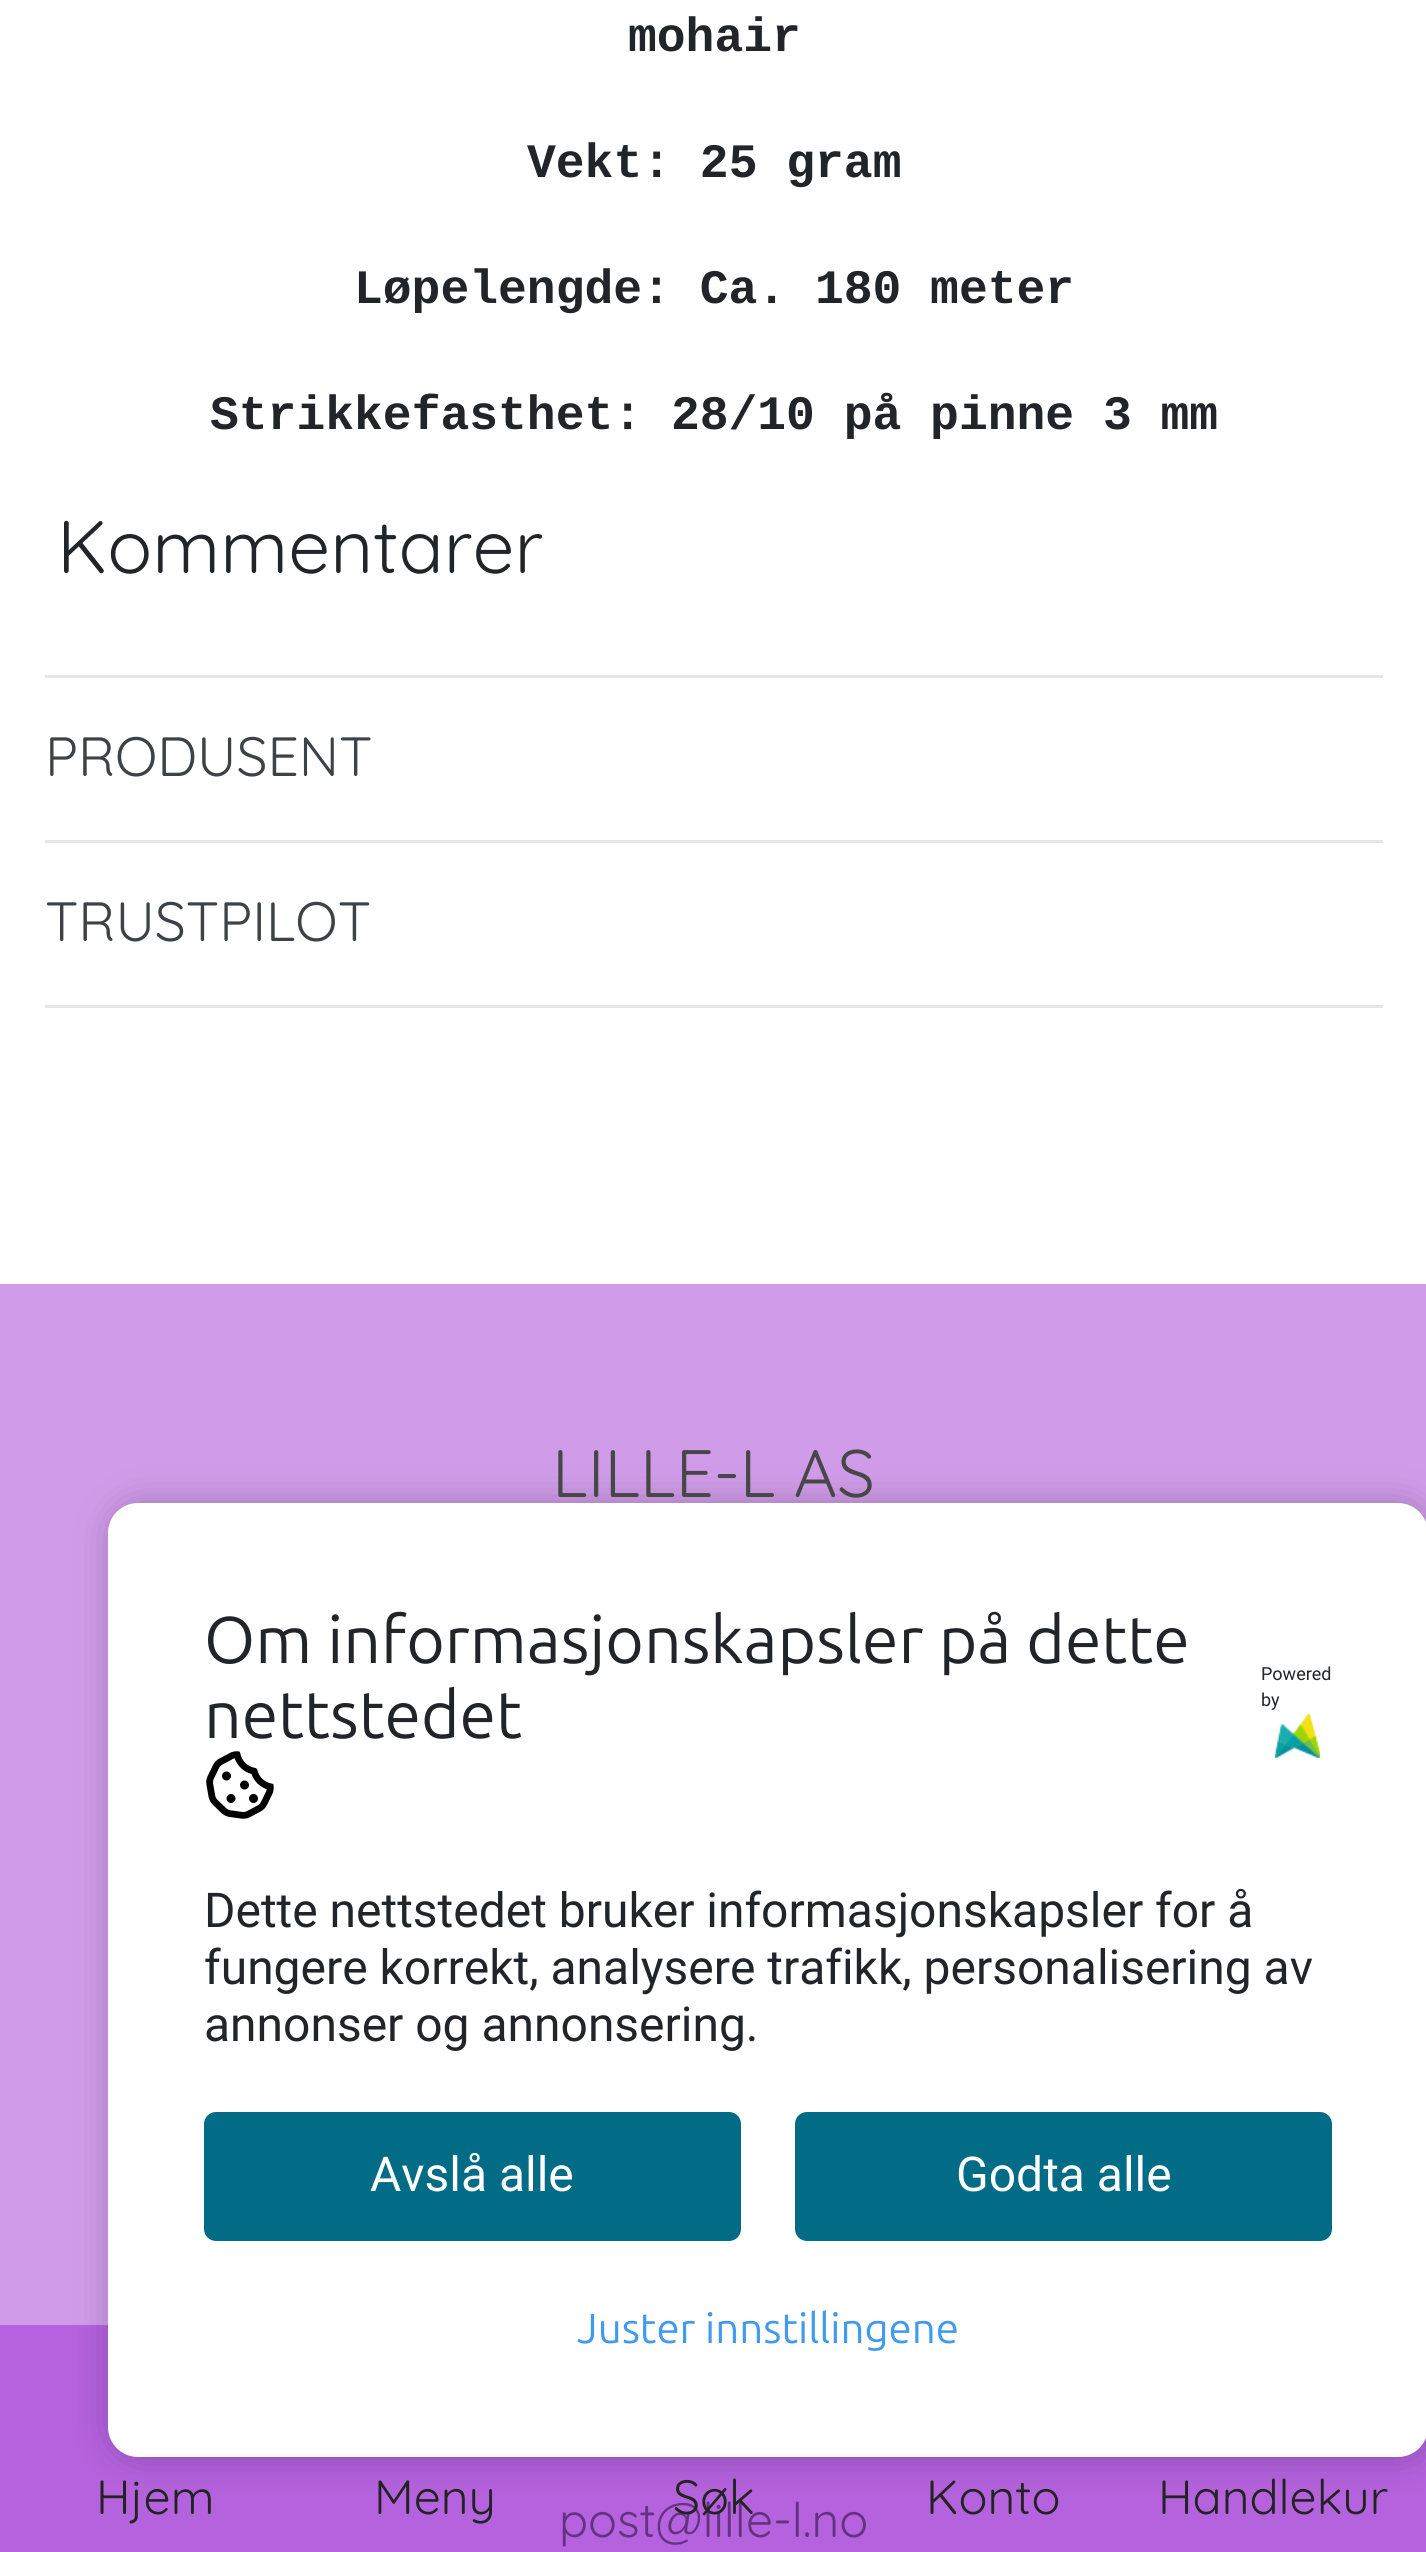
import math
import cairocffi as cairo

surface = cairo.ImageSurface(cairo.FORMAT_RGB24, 1426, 2552)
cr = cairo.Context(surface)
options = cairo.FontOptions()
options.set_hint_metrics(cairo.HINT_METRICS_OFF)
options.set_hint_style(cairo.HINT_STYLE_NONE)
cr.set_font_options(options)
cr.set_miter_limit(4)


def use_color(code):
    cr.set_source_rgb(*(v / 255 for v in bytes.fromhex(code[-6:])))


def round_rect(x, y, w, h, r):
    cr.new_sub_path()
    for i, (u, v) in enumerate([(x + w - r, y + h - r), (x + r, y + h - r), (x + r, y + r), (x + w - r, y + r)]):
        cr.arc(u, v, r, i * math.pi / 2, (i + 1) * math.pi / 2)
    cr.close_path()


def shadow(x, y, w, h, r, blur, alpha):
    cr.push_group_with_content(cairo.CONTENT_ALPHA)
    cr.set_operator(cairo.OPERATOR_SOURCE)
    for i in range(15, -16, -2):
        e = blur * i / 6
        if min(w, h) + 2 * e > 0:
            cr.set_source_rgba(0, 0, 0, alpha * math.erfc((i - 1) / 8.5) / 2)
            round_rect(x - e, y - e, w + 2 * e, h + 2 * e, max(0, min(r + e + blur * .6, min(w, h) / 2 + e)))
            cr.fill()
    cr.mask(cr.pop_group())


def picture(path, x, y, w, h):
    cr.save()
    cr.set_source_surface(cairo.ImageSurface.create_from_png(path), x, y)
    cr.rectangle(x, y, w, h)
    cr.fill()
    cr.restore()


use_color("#ffffff")
cr.paint()
cr.select_font_face("Liberation Mono", cairo.FONT_SLANT_NORMAL, cairo.FONT_WEIGHT_BOLD)
cr.set_font_size(48)
use_color("#212529")
cr.move_to(628, 51)
cr.show_text("mohair")
cr.move_to(527, 177)
cr.show_text("Vekt: 25 gram")
cr.move_to(354, 303)
cr.show_text("Løpelengde: Ca. 180 meter")
cr.move_to(210, 429)
cr.show_text("Strikkefasthet: 28/10 på pinne 3 mm")
cr.select_font_face("Quicksand")
cr.set_font_size(74.5)
cr.move_to(57, 573)
cr.show_text("Kommentarer")
use_color("#e6e6e6")
cr.rectangle(45, 675, 1338, 3)
cr.fill()
cr.set_font_size(55.25)
use_color("#3c4247")
cr.move_to(45, 776)
cr.show_text("PRODUSENT")
use_color("#e6e6e6")
cr.rectangle(45, 840, 1338, 3)
cr.fill()
cr.rectangle(45, 1005, 1338, 3)
cr.fill()
use_color("#3c4247")
cr.move_to(45, 941)
cr.show_text("TRUSTPILOT")
use_color("#d09cea")
cr.rectangle(0, 1284, 1426, 1268)
cr.fill()
cr.set_font_size(48)
use_color("#474747")
cr.move_to(559, 2537)
cr.show_text("post@lille-l.no")
cr.set_source_rgba(0.569, 0.09, 0.8, 0.43)
cr.rectangle(0, 2325, 1426, 227)
cr.fill()
use_color("#000000")
shadow(111, 1503, 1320, 954, 30, 18, 0.24)
use_color("#ffffff")
round_rect(108, 1503, 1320, 954, 30)
cr.fill()
cr.select_font_face("Ubuntu")
cr.set_font_size(66)
use_color("#212529")
cr.move_to(204, 1663)
cr.show_text("Om informasjonskapsler på dette")
cr.move_to(204, 1738)
cr.show_text("nettstedet")
picture("img1.png", 206, 1751, 68, 68)
cr.select_font_face("Roboto")
cr.set_font_size(18)
cr.move_to(1261, 1680)
cr.show_text("Powered")
cr.move_to(1261, 1706)
cr.show_text("by")
picture("img2.png", 1275, 1713, 45, 45)
cr.set_font_size(48)
cr.move_to(204, 1927)
cr.show_text("Dette nettstedet bruker informasjonskapsler for å")
cr.move_to(204, 1984)
cr.show_text("fungere korrekt, analysere trafikk, personalisering av")
cr.move_to(204, 2041)
cr.show_text("annonser og annonsering.")
use_color("#026b85")
round_rect(204, 2112, 537, 129, 12)
cr.fill()
use_color("#ffffff")
cr.move_to(370, 2191)
cr.show_text("Avslå alle")
use_color("#026b85")
round_rect(795, 2112, 537, 129, 12)
cr.fill()
use_color("#ffffff")
cr.move_to(956, 2191)
cr.show_text("Godta alle")
cr.select_font_face("Ubuntu")
cr.set_font_size(42)
use_color("#409aef")
cr.move_to(577, 2343)
cr.show_text("Juster innstillingene")
cr.select_font_face("Quicksand")
cr.set_font_size(67)
use_color("#474747")
cr.move_to(552, 1497)
cr.show_text("LILLE-L AS")
cr.set_font_size(48)
use_color("#232323")
cr.move_to(96, 2514)
cr.show_text("Hjem")
cr.move_to(374, 2514)
cr.show_text("Meny")
cr.move_to(673, 2514)
cr.show_text("Søk")
cr.move_to(926, 2514)
cr.show_text("Konto")
cr.move_to(1158, 2514)
cr.show_text("Handlekur")
surface.write_to_png("result.png")
